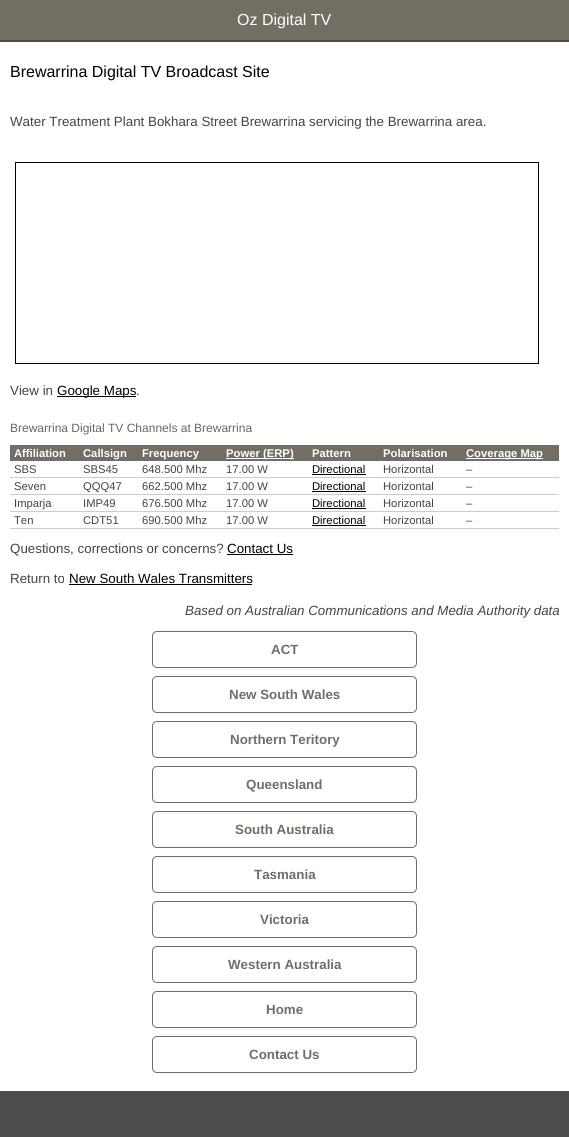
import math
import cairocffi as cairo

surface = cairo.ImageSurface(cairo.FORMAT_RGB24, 569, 1137)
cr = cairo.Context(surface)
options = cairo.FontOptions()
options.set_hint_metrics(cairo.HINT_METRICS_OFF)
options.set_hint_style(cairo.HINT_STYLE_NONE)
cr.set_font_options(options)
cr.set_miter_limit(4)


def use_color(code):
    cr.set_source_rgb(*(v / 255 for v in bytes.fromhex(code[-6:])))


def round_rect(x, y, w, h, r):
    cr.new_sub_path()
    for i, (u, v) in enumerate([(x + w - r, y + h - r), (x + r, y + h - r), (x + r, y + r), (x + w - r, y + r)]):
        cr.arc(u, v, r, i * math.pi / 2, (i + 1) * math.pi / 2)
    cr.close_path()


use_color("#4c4c4c")
cr.paint()
use_color("#726e63")
cr.rectangle(0, 0, 569, 40)
cr.fill()
cr.select_font_face("Liberation Sans")
cr.set_font_size(16)
use_color("#ffffff")
cr.move_to(237, 25)
cr.show_text("Oz Digital TV")
cr.rectangle(0, 42, 569, 1049)
cr.fill()
use_color("#000000")
cr.move_to(10, 77)
cr.show_text("Brewarrina Digital TV Broadcast Site")
cr.set_font_size(13.35)
use_color("#444444")
cr.move_to(10, 126)
cr.show_text("Water Treatment Plant Bokhara Street Brewarrina servicing the Brewarrina area.")
cr.rectangle(15.5, 162.5, 523, 201)
use_color("#000000")
cr.set_line_width(1)
cr.stroke()
use_color("#444444")
cr.move_to(10, 395)
cr.show_text("View in")
use_color("#000000")
cr.rectangle(57, 396, 79, 1)
cr.fill()
cr.move_to(57, 395)
cr.show_text("Google Maps")
use_color("#444444")
cr.move_to(136, 395)
cr.show_text(".")
cr.set_font_size(12)
use_color("#666666")
cr.move_to(10, 432)
cr.show_text("Brewarrina Digital TV Channels at Brewarrina")
use_color("#726e63")
cr.rectangle(10, 445, 549, 16)
cr.fill()
cr.select_font_face("Liberation Sans", cairo.FONT_SLANT_NORMAL, cairo.FONT_WEIGHT_BOLD)
cr.set_font_size(11.25)
use_color("#ffffff")
cr.move_to(14, 457)
cr.show_text("Affiliation")
cr.move_to(83, 457)
cr.show_text("Callsign")
cr.move_to(142, 457)
cr.show_text("Frequency")
cr.rectangle(226, 458, 41, 1)
cr.fill()
cr.move_to(226, 457)
cr.show_text("Power (ERP")
cr.new_path()
cr.move_to(266.5, 458.5)
cr.line_to(290, 458.5)
cr.set_dash([1, 1])
cr.stroke()
cr.rectangle(267, 458, 27, 1)
cr.fill()
cr.move_to(290, 457)
cr.show_text(")")
cr.move_to(312, 457)
cr.show_text("Pattern")
cr.move_to(383, 457)
cr.show_text("Polarisation")
cr.rectangle(466, 458, 77, 1)
cr.fill()
cr.move_to(466, 457)
cr.show_text("Coverage Map")
cr.select_font_face("Liberation Sans")
use_color("#444444")
cr.move_to(14, 473)
cr.show_text("SBS")
cr.move_to(83, 473)
cr.show_text("SBS45")
cr.move_to(142, 473)
cr.show_text("648.500 Mhz")
cr.move_to(226, 473)
cr.show_text("17.00 W")
use_color("#000000")
cr.move_to(312, 473)
cr.show_text("Directional")
cr.rectangle(312, 474, 54, 1)
cr.fill()
use_color("#444444")
cr.move_to(383, 473)
cr.show_text("Horizontal")
use_color("#cccccc")
cr.rectangle(10, 477, 549, 1)
cr.fill()
use_color("#444444")
cr.move_to(466, 473)
cr.show_text("–")
cr.move_to(14, 490)
cr.show_text("Seven")
cr.move_to(83, 490)
cr.show_text("QQQ47")
cr.move_to(142, 490)
cr.show_text("662.500 Mhz")
cr.move_to(226, 490)
cr.show_text("17.00 W")
use_color("#000000")
cr.move_to(312, 490)
cr.show_text("Directional")
cr.rectangle(312, 491, 54, 1)
cr.fill()
use_color("#444444")
cr.move_to(383, 490)
cr.show_text("Horizontal")
use_color("#cccccc")
cr.rectangle(10, 494, 549, 1)
cr.fill()
use_color("#444444")
cr.move_to(466, 490)
cr.show_text("–")
cr.move_to(14, 507)
cr.show_text("Imparja")
cr.move_to(83, 507)
cr.show_text("IMP49")
cr.move_to(142, 507)
cr.show_text("676.500 Mhz")
cr.move_to(226, 507)
cr.show_text("17.00 W")
use_color("#000000")
cr.move_to(312, 507)
cr.show_text("Directional")
cr.rectangle(312, 508, 54, 1)
cr.fill()
use_color("#444444")
cr.move_to(383, 507)
cr.show_text("Horizontal")
use_color("#cccccc")
cr.rectangle(10, 511, 549, 1)
cr.fill()
use_color("#444444")
cr.move_to(466, 507)
cr.show_text("–")
cr.move_to(14, 524)
cr.show_text("Ten")
cr.move_to(83, 524)
cr.show_text("CDT51")
cr.move_to(142, 524)
cr.show_text("690.500 Mhz")
cr.move_to(226, 524)
cr.show_text("17.00 W")
use_color("#000000")
cr.move_to(312, 524)
cr.show_text("Directional")
cr.rectangle(312, 525, 54, 1)
cr.fill()
use_color("#444444")
cr.move_to(383, 524)
cr.show_text("Horizontal")
use_color("#cccccc")
cr.rectangle(10, 528, 549, 1)
cr.fill()
use_color("#444444")
cr.move_to(466, 524)
cr.show_text("–")
cr.set_font_size(13.35)
cr.move_to(10, 553)
cr.show_text("Questions, corrections or concerns?")
use_color("#000000")
cr.move_to(227, 553)
cr.show_text("Contact Us")
cr.rectangle(227, 554, 66, 1)
cr.fill()
use_color("#444444")
cr.move_to(10, 583)
cr.show_text("Return to")
use_color("#000000")
cr.move_to(69, 583)
cr.show_text("New South Wales Transmitters")
cr.rectangle(69, 584, 183, 1)
cr.fill()
cr.select_font_face("Liberation Sans", cairo.FONT_SLANT_ITALIC)
use_color("#444444")
cr.move_to(185, 615)
cr.show_text("Based on Australian Communications and Media Authority data")
round_rect(152.5, 631.5, 264, 36, 4.5)
use_color("#726e63")
cr.set_dash([])
cr.stroke()
cr.select_font_face("Liberation Sans", cairo.FONT_SLANT_NORMAL, cairo.FONT_WEIGHT_BOLD)
cr.move_to(271, 654)
cr.show_text("ACT")
round_rect(152.5, 676.5, 264, 36, 4.5)
cr.stroke()
cr.move_to(229, 699)
cr.show_text("New South Wales")
round_rect(152.5, 721.5, 264, 36, 4.5)
cr.stroke()
cr.move_to(230, 744)
cr.show_text("Northern Teritory")
round_rect(152.5, 766.5, 264, 36, 4.5)
cr.stroke()
cr.move_to(246, 789)
cr.show_text("Queensland")
round_rect(152.5, 811.5, 264, 36, 4.5)
cr.stroke()
cr.move_to(235, 834)
cr.show_text("South Australia")
round_rect(152.5, 856.5, 264, 36, 4.5)
cr.stroke()
cr.move_to(254, 879)
cr.show_text("Tasmania")
round_rect(152.5, 901.5, 264, 36, 4.5)
cr.stroke()
cr.move_to(260, 924)
cr.show_text("Victoria")
round_rect(152.5, 946.5, 264, 36, 4.5)
cr.stroke()
cr.move_to(228, 969)
cr.show_text("Western Australia")
round_rect(152.5, 991.5, 264, 36, 4.5)
cr.stroke()
cr.move_to(266, 1014)
cr.show_text("Home")
round_rect(152.5, 1036.5, 264, 36, 4.5)
cr.stroke()
cr.move_to(249, 1059)
cr.show_text("Contact Us")
surface.write_to_png("result.png")
